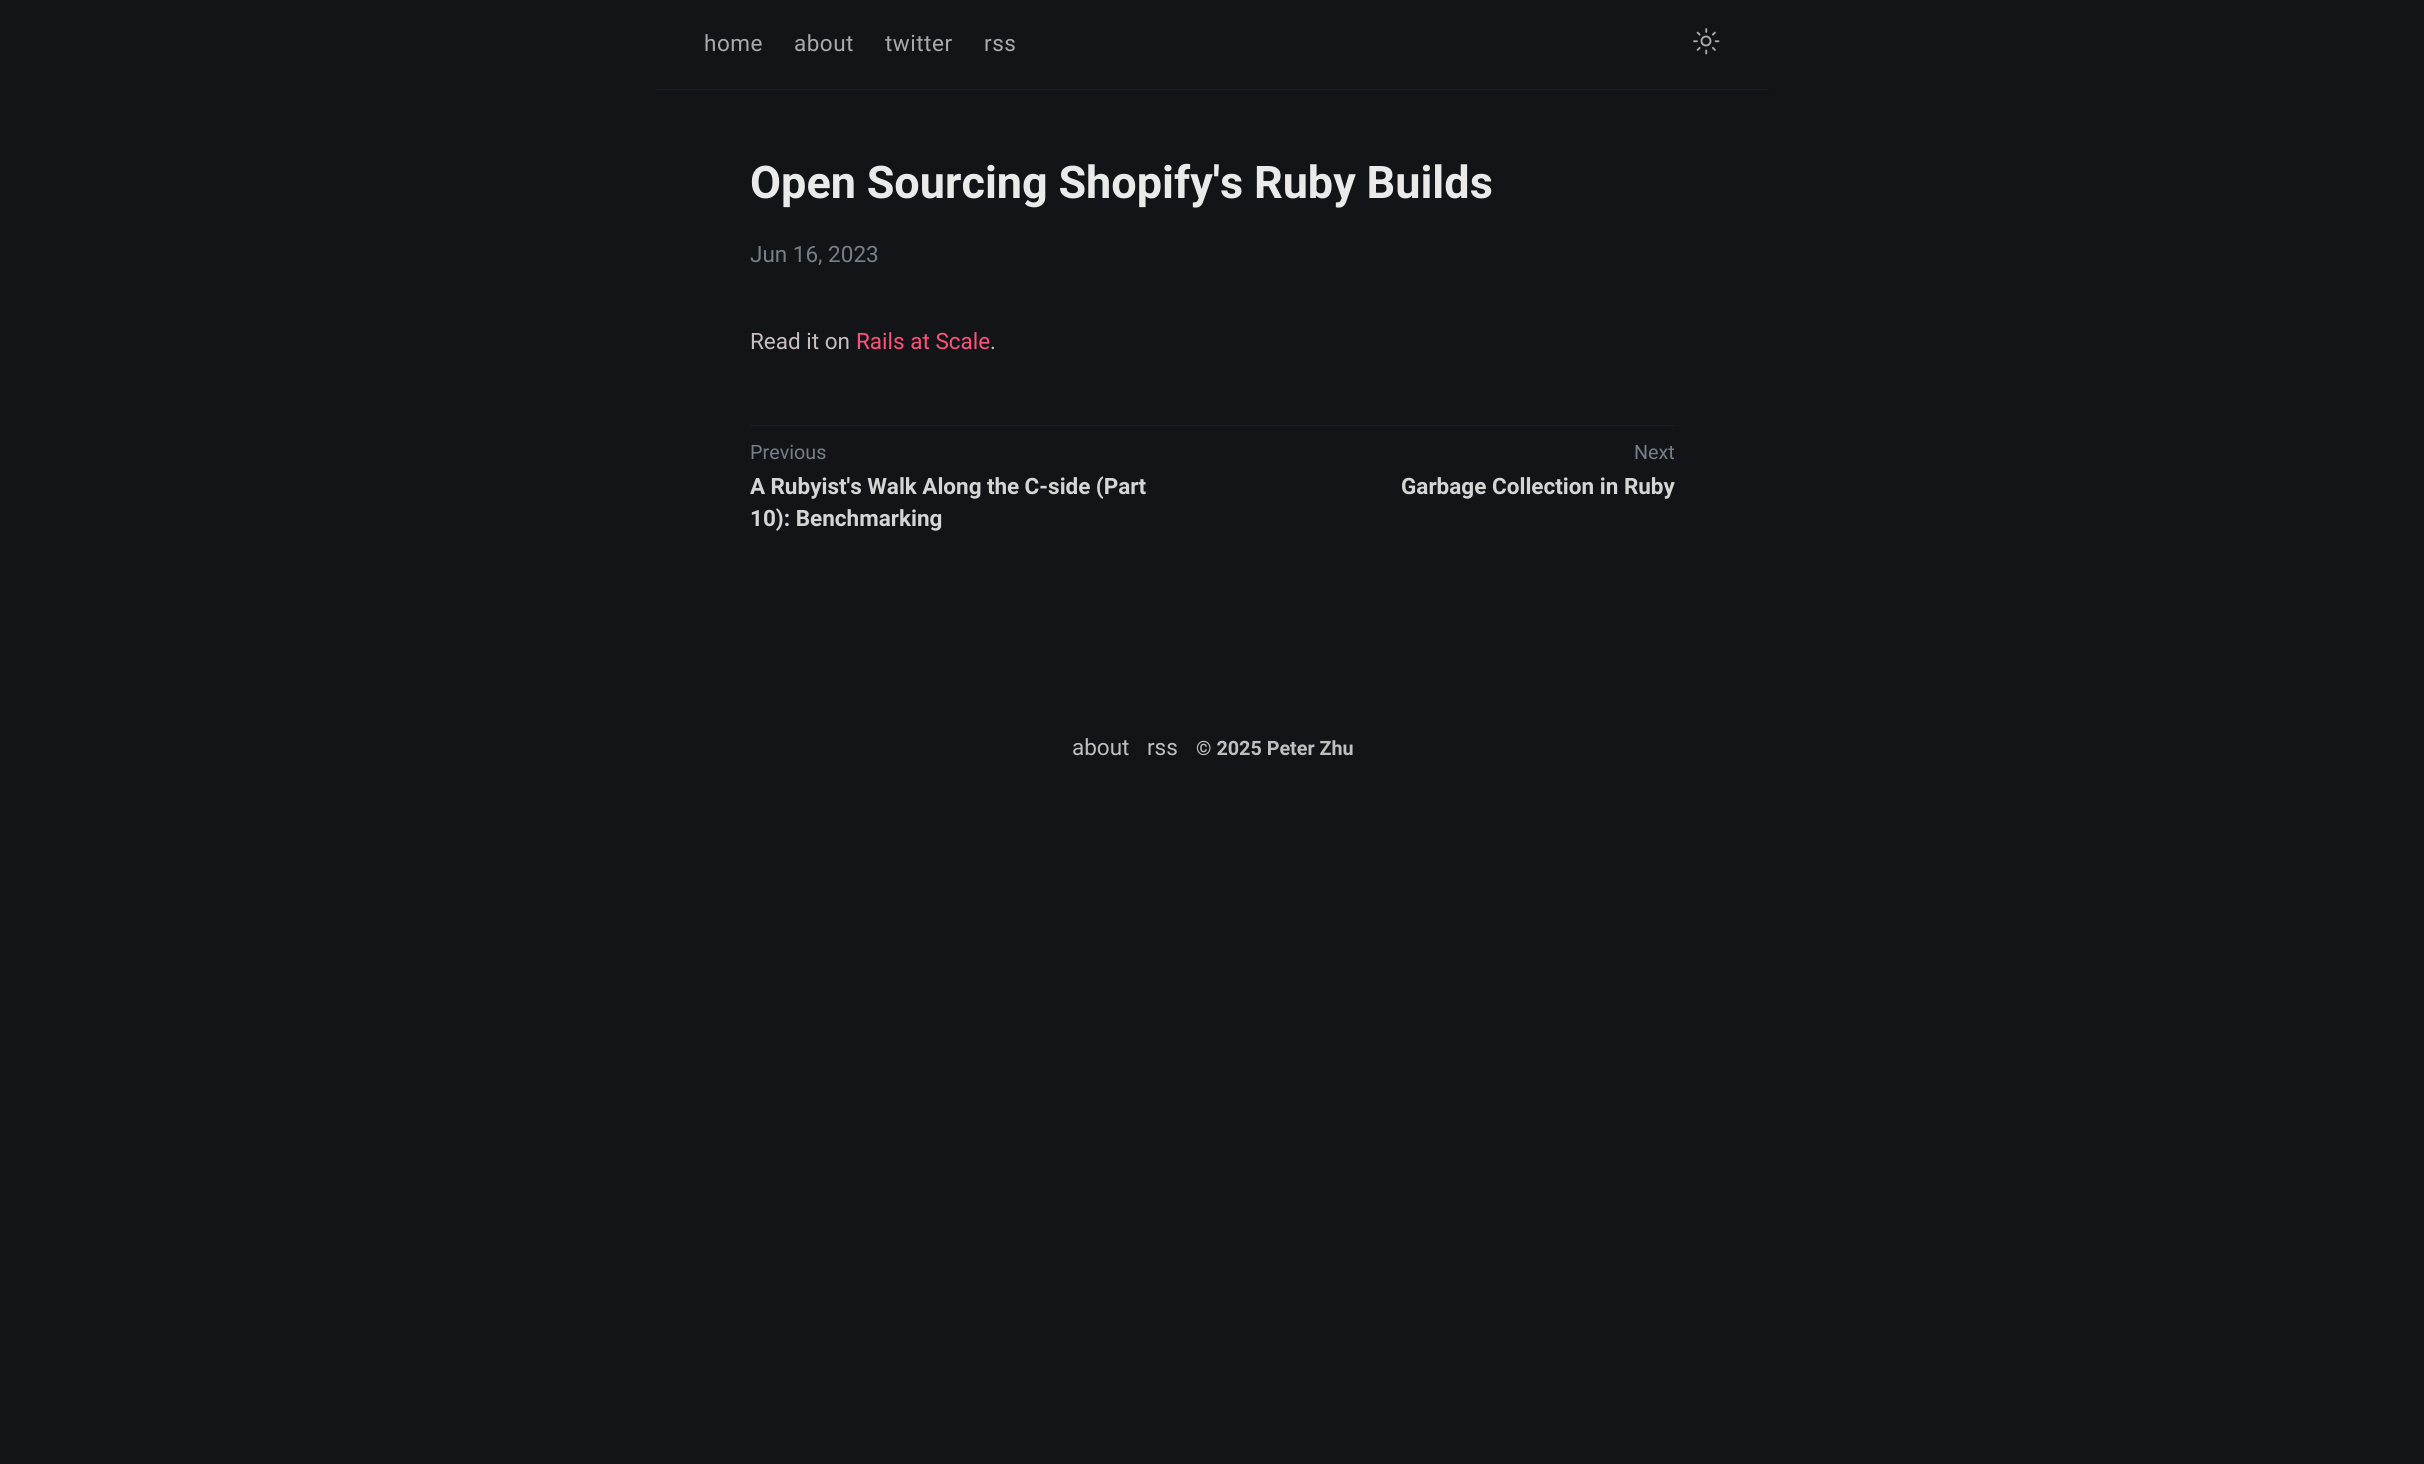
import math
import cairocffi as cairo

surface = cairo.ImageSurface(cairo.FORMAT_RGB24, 2424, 1464)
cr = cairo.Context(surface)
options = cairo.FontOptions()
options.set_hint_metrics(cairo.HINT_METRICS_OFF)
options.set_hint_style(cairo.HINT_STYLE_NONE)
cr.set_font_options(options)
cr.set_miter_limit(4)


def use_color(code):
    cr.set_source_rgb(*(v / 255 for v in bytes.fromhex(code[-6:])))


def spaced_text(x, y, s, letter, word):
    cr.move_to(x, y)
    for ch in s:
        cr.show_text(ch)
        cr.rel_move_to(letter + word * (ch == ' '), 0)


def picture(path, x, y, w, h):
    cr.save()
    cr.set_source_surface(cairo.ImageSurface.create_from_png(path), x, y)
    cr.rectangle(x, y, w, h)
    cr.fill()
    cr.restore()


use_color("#131418")
cr.paint()
use_color("#1b1d25")
cr.rectangle(656, 89, 1113, 1)
cr.fill()
cr.select_font_face("Roboto")
cr.set_font_size(22.5)
use_color("#aaaaab")
spaced_text(704, 51, "home", 0.5, 0)
spaced_text(794, 51, "about", 0.5, 0)
spaced_text(885, 51, "twitter", 0.5, 0)
spaced_text(984, 51, "rss", 0.5, 0)
picture("img1.png", 1693, 28, 27, 27)
cr.select_font_face("Roboto", cairo.FONT_SLANT_NORMAL, cairo.FONT_WEIGHT_BOLD)
cr.set_font_size(45)
use_color("#eaeaea")
spaced_text(750, 198, "Open Sourcing Shopify's Ruby Builds", 0, -0.5)
cr.select_font_face("Roboto")
cr.set_font_size(22.5)
use_color("#767f87")
cr.move_to(750, 262)
cr.show_text("Jun 16, 2023")
use_color("#c7bebe")
cr.move_to(750, 349)
cr.show_text("Read it on")
use_color("#ff5277")
cr.move_to(856, 349)
cr.show_text("Rails at Scale")
use_color("#c7bebe")
cr.move_to(990, 349)
cr.show_text(".")
use_color("#1b1d25")
cr.rectangle(750, 425, 925, 1)
cr.fill()
cr.set_font_size(19.75)
use_color("#767f87")
cr.move_to(750, 459)
cr.show_text("Previous")
cr.select_font_face("Roboto", cairo.FONT_SLANT_NORMAL, cairo.FONT_WEIGHT_BOLD)
cr.set_font_size(22.5)
use_color("#d5d5d5")
spaced_text(750, 494, "A Rubyist's Walk Along the C-side (Part", 0, -0.25)
cr.move_to(750, 526)
cr.show_text("10): Benchmarking")
cr.select_font_face("Roboto")
cr.set_font_size(19.75)
use_color("#767f87")
cr.move_to(1634, 459)
cr.show_text("Next")
cr.select_font_face("Roboto", cairo.FONT_SLANT_NORMAL, cairo.FONT_WEIGHT_BOLD)
cr.set_font_size(22.5)
use_color("#d5d5d5")
cr.move_to(1401, 494)
cr.show_text("Garbage Collection in Ruby")
cr.select_font_face("Roboto")
use_color("#bfbfc0")
cr.move_to(1072, 755)
cr.show_text("about")
cr.move_to(1147, 755)
cr.show_text("rss")
cr.select_font_face("Roboto", cairo.FONT_SLANT_NORMAL, cairo.FONT_WEIGHT_BOLD)
cr.set_font_size(19.75)
cr.move_to(1196, 755)
cr.show_text("© 2025 Peter Zhu")
surface.write_to_png("result.png")
